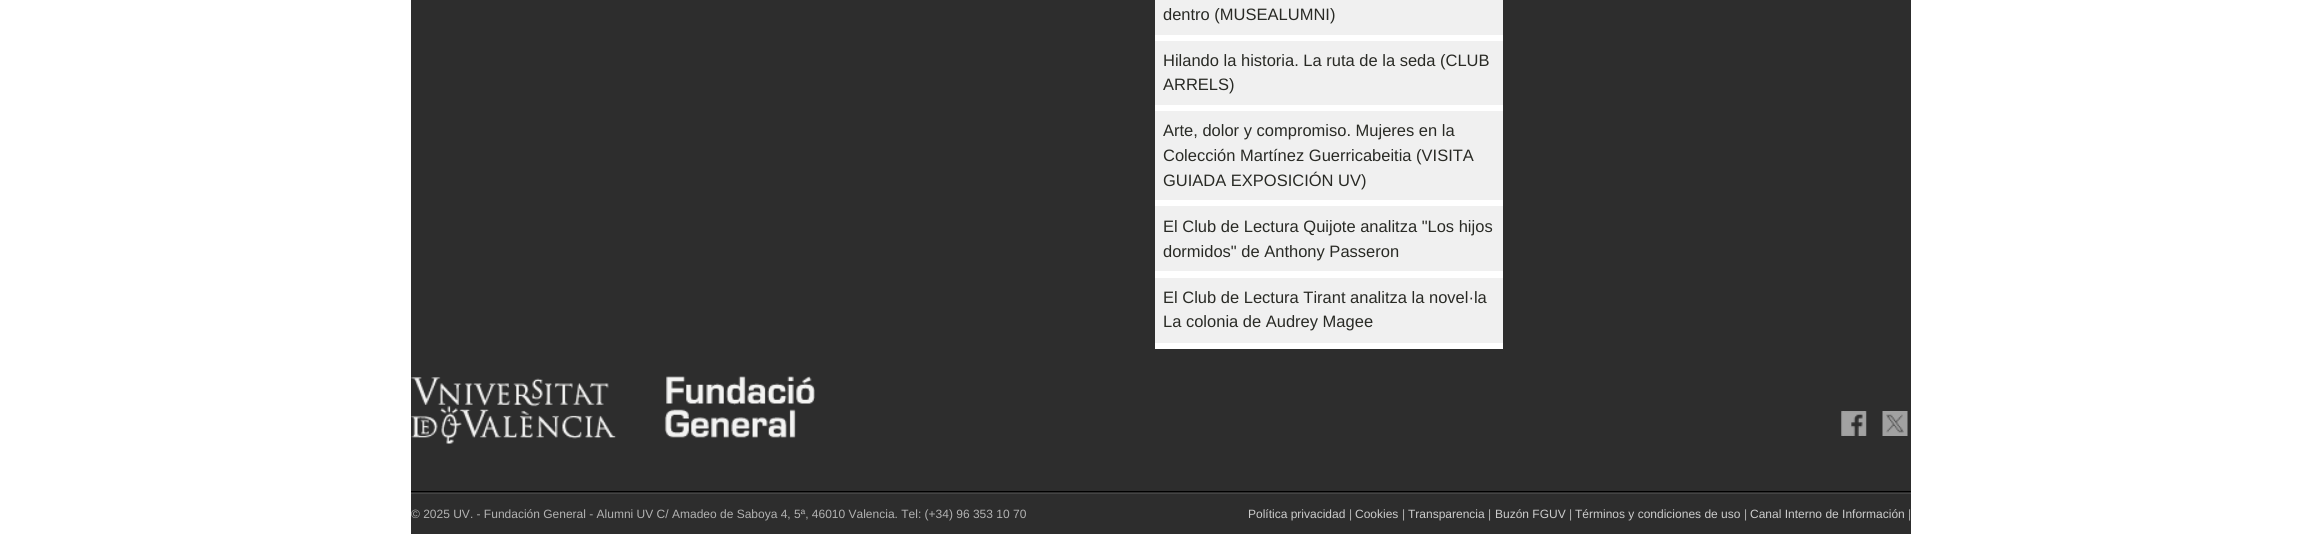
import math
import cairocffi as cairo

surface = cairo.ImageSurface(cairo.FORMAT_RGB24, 2322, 534)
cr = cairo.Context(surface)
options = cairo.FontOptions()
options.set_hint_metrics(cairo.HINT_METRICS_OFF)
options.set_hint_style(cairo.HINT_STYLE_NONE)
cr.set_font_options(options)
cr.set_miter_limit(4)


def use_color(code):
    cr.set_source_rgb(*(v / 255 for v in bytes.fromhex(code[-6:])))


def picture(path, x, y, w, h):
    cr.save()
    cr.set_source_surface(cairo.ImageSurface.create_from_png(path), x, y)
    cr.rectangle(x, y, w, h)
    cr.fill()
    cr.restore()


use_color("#ffffff")
cr.paint()
use_color("#2d2d2d")
cr.rectangle(411, 0, 1500, 534)
cr.fill()
use_color("#f0f0f0")
cr.rectangle(1155, 0, 348, 35)
cr.fill()
use_color("#ffffff")
cr.rectangle(1155, 35, 348, 6)
cr.fill()
cr.select_font_face("Liberation Sans")
cr.set_font_size(16.5)
use_color("#292a25")
cr.move_to(1163, 20)
cr.show_text("dentro (MUSEALUMNI)")
use_color("#f0f0f0")
cr.rectangle(1155, 41, 348, 64)
cr.fill()
use_color("#ffffff")
cr.rectangle(1155, 105, 348, 6)
cr.fill()
use_color("#292a25")
cr.move_to(1163, 66)
cr.show_text("Hilando la historia. La ruta de la seda (CLUB")
cr.move_to(1163, 90)
cr.show_text("ARRELS)")
use_color("#f0f0f0")
cr.rectangle(1155, 111, 348, 89)
cr.fill()
use_color("#ffffff")
cr.rectangle(1155, 200, 348, 6)
cr.fill()
use_color("#292a25")
cr.move_to(1163, 136)
cr.show_text("Arte, dolor y compromiso. Mujeres en la")
cr.move_to(1163, 161)
cr.show_text("Colección Martínez Guerricabeitia (VISITA")
cr.move_to(1163, 186)
cr.show_text("GUIADA EXPOSICIÓN UV)")
use_color("#f0f0f0")
cr.rectangle(1155, 206, 348, 65)
cr.fill()
use_color("#ffffff")
cr.rectangle(1155, 271, 348, 7)
cr.fill()
use_color("#292a25")
cr.move_to(1163, 232)
cr.show_text("El Club de Lectura Quijote analitza \"Los hijos")
cr.move_to(1163, 257)
cr.show_text("dormidos\" de Anthony Passeron")
use_color("#f0f0f0")
cr.rectangle(1155, 278, 348, 65)
cr.fill()
use_color("#ffffff")
cr.rectangle(1155, 343, 348, 6)
cr.fill()
use_color("#292a25")
cr.move_to(1163, 303)
cr.show_text("El Club de Lectura Tirant analitza la novel·la")
cr.move_to(1163, 327)
cr.show_text("La colonia de Audrey Magee")
picture("img1.png", 411, 376, 404, 68)
picture("img2.png", 1841, 411, 26, 25)
picture("img3.png", 1882, 411, 26, 25)
use_color("#000000")
cr.rectangle(411, 491, 1500, 1)
cr.fill()
use_color("#444444")
cr.rectangle(411, 493, 1500, 1)
cr.fill()
cr.set_font_size(12)
use_color("#b2b2b2")
cr.move_to(411, 518)
cr.show_text("© 2025 UV. - Fundación General - Alumni UV C/ Amadeo de Saboya 4, 5ª, 46010 Valencia. Tel: (+34) 96 353 10 70")
use_color("#cccccc")
cr.move_to(1248, 518)
cr.show_text("Política privacidad")
use_color("#b2b2b2")
cr.move_to(1349, 518)
cr.show_text("|")
use_color("#cccccc")
cr.move_to(1355, 518)
cr.show_text("Cookies")
use_color("#b2b2b2")
cr.move_to(1402, 518)
cr.show_text("|")
use_color("#cccccc")
cr.move_to(1408, 518)
cr.show_text("Transparencia")
use_color("#b2b2b2")
cr.move_to(1488, 518)
cr.show_text("|")
use_color("#cccccc")
cr.move_to(1495, 518)
cr.show_text("Buzón FGUV")
use_color("#b2b2b2")
cr.move_to(1569, 518)
cr.show_text("|")
use_color("#cccccc")
cr.move_to(1575, 518)
cr.show_text("Términos y condiciones de uso")
use_color("#b2b2b2")
cr.move_to(1744, 518)
cr.show_text("|")
use_color("#cccccc")
cr.move_to(1750, 518)
cr.show_text("Canal Interno de Información")
use_color("#b2b2b2")
cr.move_to(1908, 518)
cr.show_text("|")
surface.write_to_png("result.png")
